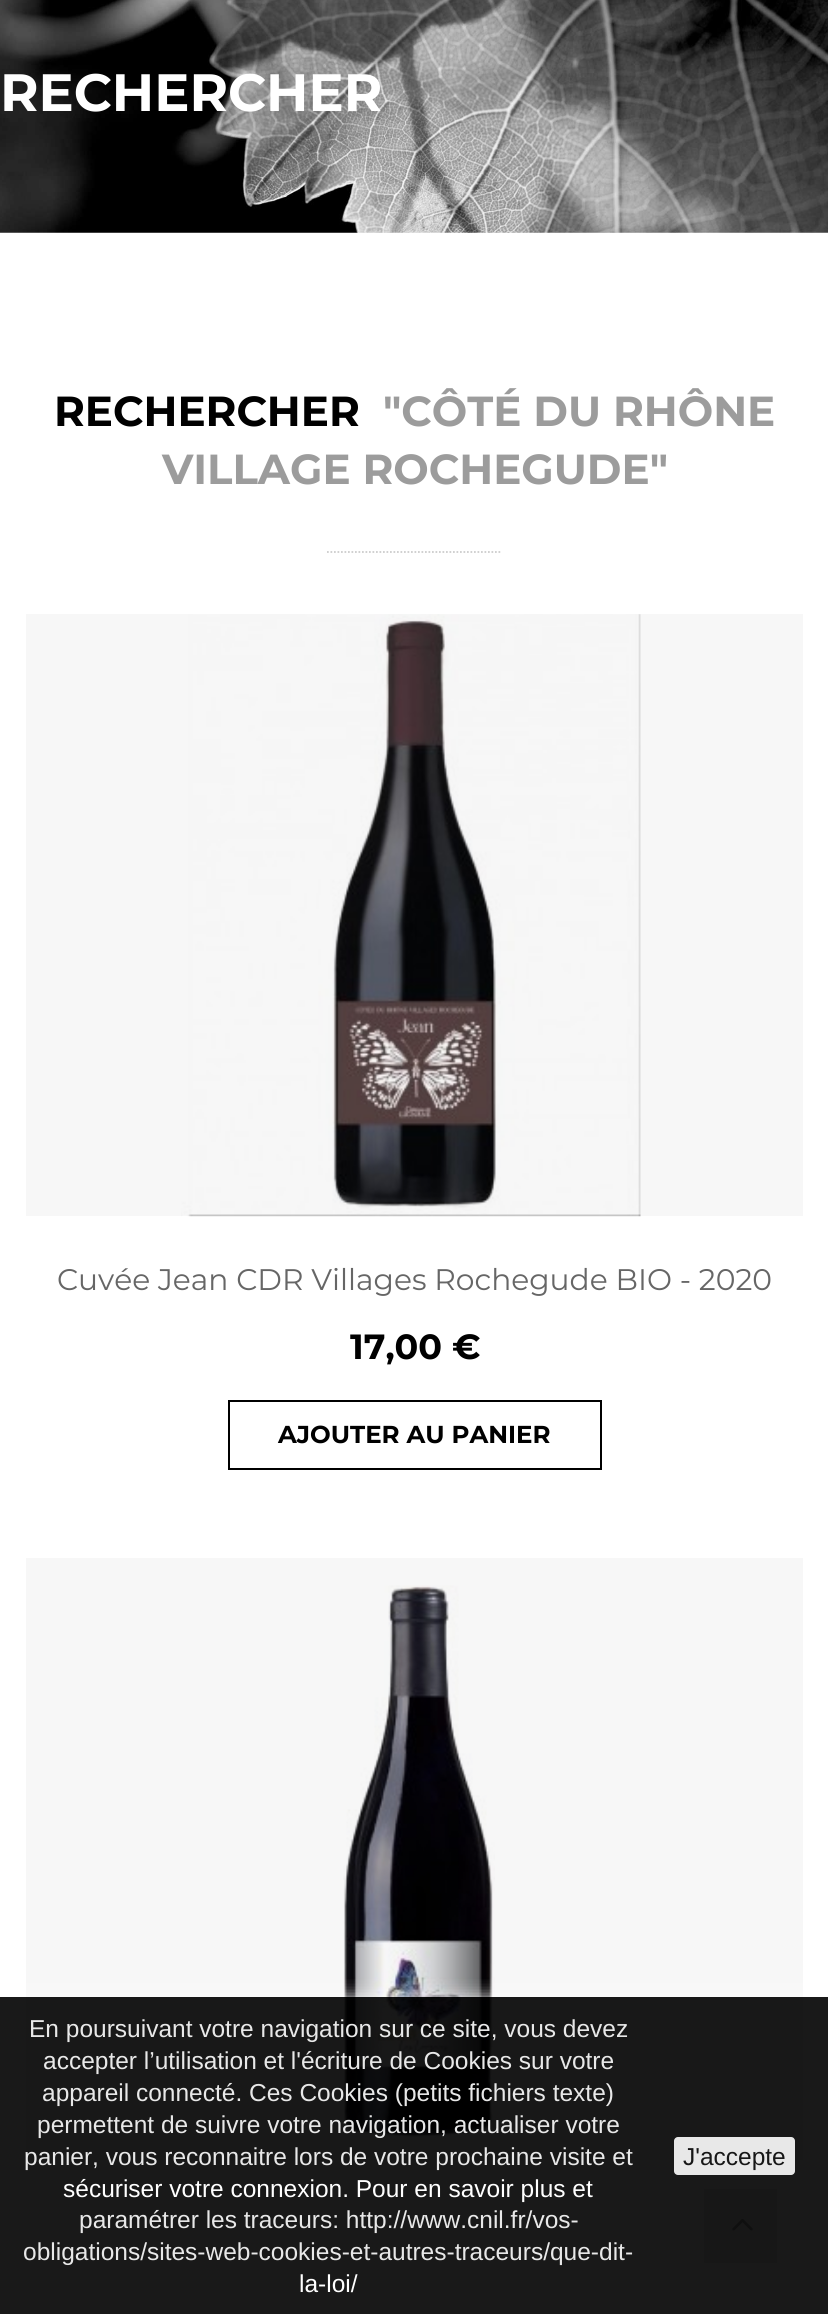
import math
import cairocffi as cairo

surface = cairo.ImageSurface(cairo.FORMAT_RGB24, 828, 2314)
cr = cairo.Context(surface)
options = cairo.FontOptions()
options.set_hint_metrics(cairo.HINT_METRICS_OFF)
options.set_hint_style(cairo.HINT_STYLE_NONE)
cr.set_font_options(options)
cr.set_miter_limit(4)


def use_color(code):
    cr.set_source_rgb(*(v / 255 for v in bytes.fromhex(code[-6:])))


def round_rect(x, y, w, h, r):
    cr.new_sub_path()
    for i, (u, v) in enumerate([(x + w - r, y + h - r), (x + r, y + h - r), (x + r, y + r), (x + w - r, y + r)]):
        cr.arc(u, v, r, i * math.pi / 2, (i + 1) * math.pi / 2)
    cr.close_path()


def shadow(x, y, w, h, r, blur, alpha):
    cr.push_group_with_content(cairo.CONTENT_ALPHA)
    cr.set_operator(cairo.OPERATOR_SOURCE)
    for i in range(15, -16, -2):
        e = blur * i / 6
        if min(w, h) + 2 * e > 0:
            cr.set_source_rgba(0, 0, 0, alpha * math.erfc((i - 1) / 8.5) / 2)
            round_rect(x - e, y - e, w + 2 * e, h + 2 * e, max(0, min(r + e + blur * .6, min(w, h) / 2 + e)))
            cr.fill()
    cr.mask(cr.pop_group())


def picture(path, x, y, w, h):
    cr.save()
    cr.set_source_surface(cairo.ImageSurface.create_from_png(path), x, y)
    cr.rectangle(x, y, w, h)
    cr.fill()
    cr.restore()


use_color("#ffffff")
cr.paint()
use_color("#f7f7f7")
cr.rectangle(26, 1558, 777, 602)
cr.fill()
cr.rectangle(26, 614, 777, 602)
cr.fill()
picture("img1.png", 0, 0, 828, 233)
cr.select_font_face("Montserrat", cairo.FONT_SLANT_NORMAL, cairo.FONT_WEIGHT_BOLD)
cr.set_font_size(52.5)
use_color("#ffffff")
cr.move_to(0, 111)
cr.show_text("RECHERCHER")
cr.set_font_size(42)
use_color("#000000")
cr.move_to(54, 426)
cr.show_text("RECHERCHER")
use_color("#9c9c9c")
cr.move_to(383, 426)
cr.show_text("\"CÔTÉ DU RHÔNE")
cr.move_to(162, 484)
cr.show_text("VILLAGE ROCHEGUDE\"")
cr.new_path()
cr.move_to(327, 552)
cr.line_to(502, 552)
use_color("#cccccc")
cr.set_line_width(1.8)
cr.set_dash([1.75, 1.75])
cr.stroke()
picture("img2.png", 181, 614, 460, 603)
cr.select_font_face("Montserrat")
cr.set_font_size(29.75)
use_color("#666666")
cr.move_to(57, 1290)
cr.show_text("Cuvée Jean CDR Villages Rochegude BIO - 2020")
cr.select_font_face("Montserrat", cairo.FONT_SLANT_NORMAL, cairo.FONT_WEIGHT_BOLD)
cr.set_font_size(35)
use_color("#000000")
cr.move_to(350, 1359)
cr.show_text("17,00 €")
cr.rectangle(229, 1401, 372, 68)
cr.set_line_width(2)
cr.set_dash([])
cr.stroke()
cr.set_font_size(24.5)
cr.move_to(278, 1443)
cr.show_text("AJOUTER AU PANIER")
picture("img3.png", 343, 1585, 152, 560)
use_color("#ececec")
cr.rectangle(704, 2189, 73, 74)
cr.fill()
picture("img4.png", 732, 2219, 21, 12)
cr.save()
cr.rectangle(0, 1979, 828, 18)
cr.clip()
use_color("#ffffff")
shadow(0, 1997, 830, 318, 0, 9, 0.9)
cr.restore()
cr.set_source_rgba(0, 0, 0, 0.9)
cr.rectangle(0, 1997, 828, 317)
cr.fill()
cr.select_font_face("Liberation Sans")
use_color("#e8e8e8")
cr.move_to(29, 2037)
cr.show_text("En poursuivant votre navigation sur ce site, vous devez")
cr.move_to(43, 2069)
cr.show_text("accepter l’utilisation et l'écriture de Cookies sur votre")
cr.move_to(42, 2101)
cr.show_text("appareil connecté. Ces Cookies (petits fichiers texte)")
cr.move_to(37, 2133)
cr.show_text("permettent de suivre votre navigation, actualiser votre")
cr.move_to(24, 2165)
cr.show_text("panier, vous reconnaitre lors de votre prochaine visite et")
use_color("#ffffff")
cr.move_to(63, 2197)
cr.show_text("sécuriser votre connexion. Pour en savoir plus et")
use_color("#e8e8e8")
cr.move_to(79, 2228)
cr.show_text("paramétrer les traceurs: http://www.cnil.fr/vos-")
cr.move_to(23, 2260)
cr.show_text("obligations/sites-web-cookies-et-autres-traceurs/que-dit-")
use_color("#ffffff")
cr.move_to(299, 2292)
cr.show_text("la-loi/")
use_color("#e8e8e8")
round_rect(674, 2137, 121, 38, 4)
cr.fill()
use_color("#171717")
cr.move_to(683, 2165)
cr.show_text("J'accepte")
surface.write_to_png("result.png")
